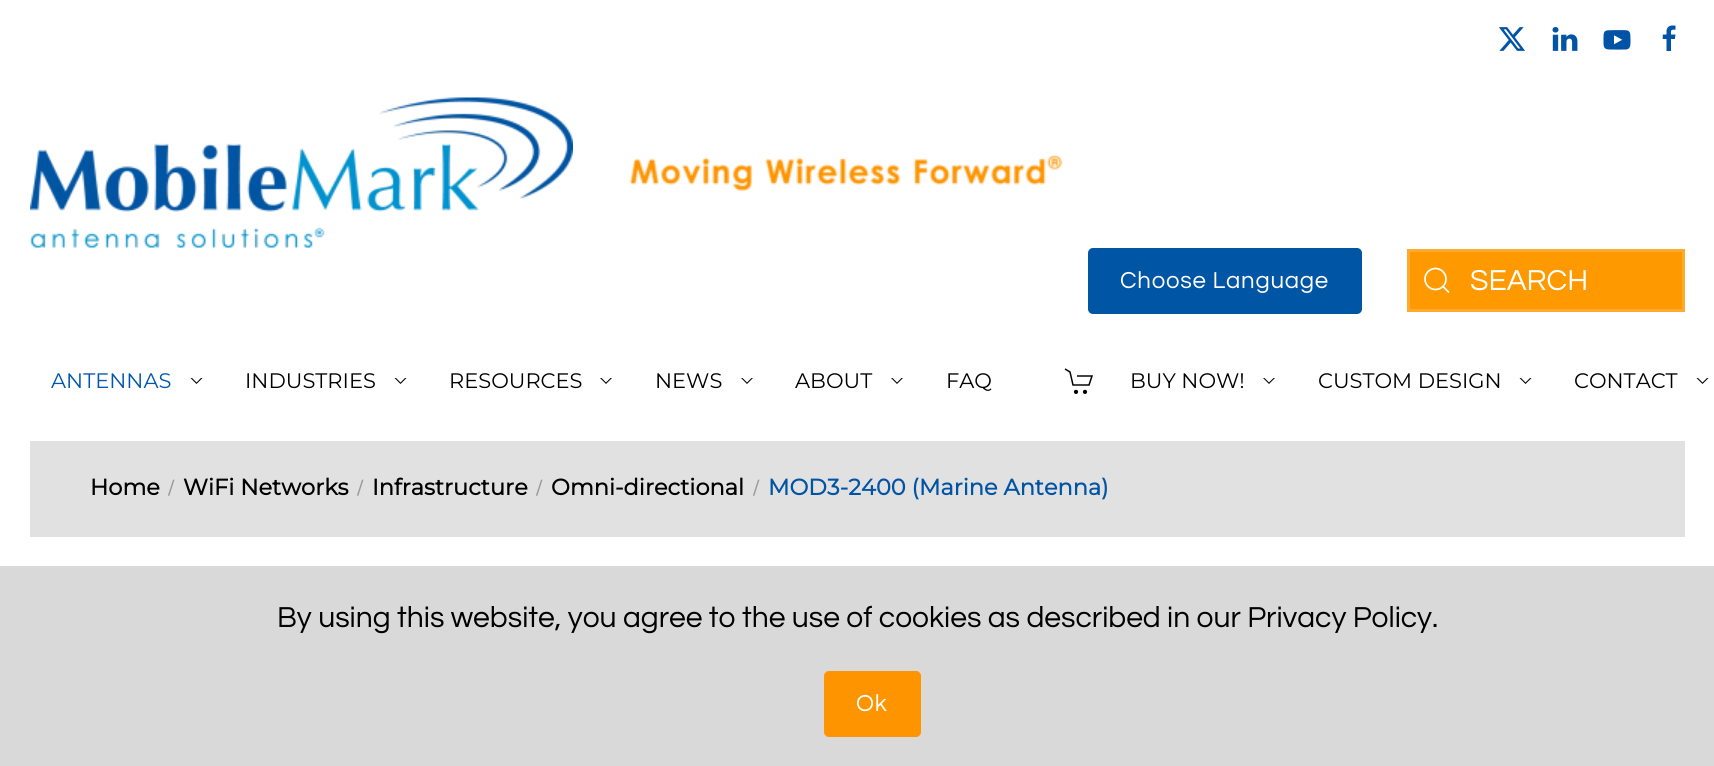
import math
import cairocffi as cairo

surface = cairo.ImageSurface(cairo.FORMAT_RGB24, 1714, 766)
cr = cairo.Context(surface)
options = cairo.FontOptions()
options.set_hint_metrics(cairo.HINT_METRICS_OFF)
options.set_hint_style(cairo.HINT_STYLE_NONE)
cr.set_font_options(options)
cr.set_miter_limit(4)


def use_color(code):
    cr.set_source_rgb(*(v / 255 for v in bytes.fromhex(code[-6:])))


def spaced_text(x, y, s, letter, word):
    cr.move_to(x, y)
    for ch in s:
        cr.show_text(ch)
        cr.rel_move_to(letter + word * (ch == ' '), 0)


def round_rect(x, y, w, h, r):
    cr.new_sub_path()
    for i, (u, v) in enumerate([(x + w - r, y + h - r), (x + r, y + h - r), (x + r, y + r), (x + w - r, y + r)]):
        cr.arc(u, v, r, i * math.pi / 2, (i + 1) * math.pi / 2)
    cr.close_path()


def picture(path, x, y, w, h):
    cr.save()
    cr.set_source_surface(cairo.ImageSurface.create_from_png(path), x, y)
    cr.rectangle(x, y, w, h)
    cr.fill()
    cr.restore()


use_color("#ffffff")
cr.paint()
picture("img1.png", 1499, 27, 26, 24)
picture("img2.png", 1552, 27, 26, 24)
picture("img3.png", 1603, 30, 28, 20)
picture("img4.png", 1662, 25, 14, 26)
picture("img5.png", 30, 97, 543, 151)
picture("img6.png", 629, 154, 434, 37)
use_color("#0055a4")
round_rect(1088, 248, 274, 66, 5)
cr.fill()
cr.select_font_face("Questrial")
cr.set_font_size(24)
use_color("#ffffff")
spaced_text(1120, 288, "Choose Language", 0.75, 0)
use_color("#ff9900")
cr.rectangle(1408.5, 250.5, 275, 60)
cr.fill_preserve()
use_color("#fdab30")
cr.set_line_width(3)
cr.stroke()
cr.arc(1435.5, 279, 10.5, 0, 2 * math.pi)
use_color("#ffffff")
cr.set_line_width(1.7)
cr.stroke()
cr.new_path()
cr.move_to(1443, 286.5)
cr.line_to(1449, 292.5)
cr.close_path()
cr.stroke()
cr.set_font_size(30)
cr.move_to(1470, 290)
cr.show_text("SEARCH")
cr.select_font_face("Montserrat Thin")
cr.set_font_size(21)
use_color("#0057ad")
cr.move_to(51, 388)
cr.show_text("ANTENNAS")
use_color("#000000")
cr.new_path()
cr.move_to(190.5, 378)
cr.line_to(202.5, 378)
cr.line_to(196.5, 384)
cr.close_path()
cr.fill()
use_color("#ffffff")
cr.new_path()
cr.move_to(190.5, 376.5)
cr.line_to(202.5, 376.5)
cr.line_to(196.5, 382.5)
cr.close_path()
cr.fill()
use_color("#000000")
cr.move_to(245, 388)
cr.show_text("INDUSTRIES")
cr.new_path()
cr.move_to(394.5, 378)
cr.line_to(406.5, 378)
cr.line_to(400.5, 384)
cr.close_path()
cr.fill()
use_color("#ffffff")
cr.new_path()
cr.move_to(394.5, 376.5)
cr.line_to(406.5, 376.5)
cr.line_to(400.5, 382.5)
cr.close_path()
cr.fill()
use_color("#000000")
cr.move_to(449, 388)
cr.show_text("RESOURCES")
cr.new_path()
cr.move_to(600, 378)
cr.line_to(612, 378)
cr.line_to(606, 384)
cr.close_path()
cr.fill()
use_color("#ffffff")
cr.new_path()
cr.move_to(600, 376.5)
cr.line_to(612, 376.5)
cr.line_to(606, 382.5)
cr.close_path()
cr.fill()
use_color("#000000")
cr.move_to(655, 388)
cr.show_text("NEWS")
cr.new_path()
cr.move_to(741, 378)
cr.line_to(753, 378)
cr.line_to(747, 384)
cr.close_path()
cr.fill()
use_color("#ffffff")
cr.new_path()
cr.move_to(741, 376.5)
cr.line_to(753, 376.5)
cr.line_to(747, 382.5)
cr.close_path()
cr.fill()
use_color("#000000")
cr.move_to(795, 388)
cr.show_text("ABOUT")
cr.new_path()
cr.move_to(891, 378)
cr.line_to(903, 378)
cr.line_to(897, 384)
cr.close_path()
cr.fill()
use_color("#ffffff")
cr.new_path()
cr.move_to(891, 376.5)
cr.line_to(903, 376.5)
cr.line_to(897, 382.5)
cr.close_path()
cr.fill()
use_color("#000000")
cr.move_to(946, 388)
cr.show_text("FAQ")
cr.new_path()
cr.move_to(1065, 369)
cr.line_to(1070, 372)
cr.line_to(1073, 385)
cr.line_to(1089, 385)
cr.line_to(1092, 376)
cr.line_to(1077, 376)
cr.set_line_width(1.5)
cr.stroke()
cr.arc(1076, 391.9, 2.1, 0, 2 * math.pi)
cr.fill()
cr.arc(1085, 391.9, 2.1, 0, 2 * math.pi)
cr.fill()
cr.move_to(1130, 388)
cr.show_text("BUY NOW!")
cr.new_path()
cr.move_to(1263, 378)
cr.line_to(1275, 378)
cr.line_to(1269, 384)
cr.close_path()
cr.fill()
use_color("#ffffff")
cr.new_path()
cr.move_to(1263, 376.5)
cr.line_to(1275, 376.5)
cr.line_to(1269, 382.5)
cr.close_path()
cr.fill()
use_color("#000000")
cr.move_to(1318, 388)
cr.show_text("CUSTOM DESIGN")
cr.new_path()
cr.move_to(1519.5, 378)
cr.line_to(1531.5, 378)
cr.line_to(1525.5, 384)
cr.close_path()
cr.fill()
use_color("#ffffff")
cr.new_path()
cr.move_to(1519.5, 376.5)
cr.line_to(1531.5, 376.5)
cr.line_to(1525.5, 382.5)
cr.close_path()
cr.fill()
use_color("#000000")
cr.move_to(1574, 388)
cr.show_text("CONTACT")
cr.new_path()
cr.move_to(1696.5, 378)
cr.line_to(1708.5, 378)
cr.line_to(1702.5, 384)
cr.close_path()
cr.fill()
use_color("#ffffff")
cr.new_path()
cr.move_to(1696.5, 376.5)
cr.line_to(1708.5, 376.5)
cr.line_to(1702.5, 382.5)
cr.close_path()
cr.fill()
use_color("#e1e1e1")
cr.rectangle(30, 441, 1655, 96)
cr.fill()
cr.select_font_face("Montserrat", cairo.FONT_SLANT_NORMAL, cairo.FONT_WEIGHT_BOLD)
cr.set_font_size(22.5)
use_color("#000000")
cr.move_to(90, 495)
cr.show_text("Home")
cr.select_font_face("Questrial")
use_color("#9c9c9c")
cr.move_to(167, 495)
cr.show_text("/")
cr.select_font_face("Montserrat", cairo.FONT_SLANT_NORMAL, cairo.FONT_WEIGHT_BOLD)
use_color("#000000")
cr.move_to(183, 495)
cr.show_text("WiFi Networks")
cr.select_font_face("Questrial")
use_color("#9c9c9c")
cr.move_to(356, 495)
cr.show_text("/")
cr.select_font_face("Montserrat", cairo.FONT_SLANT_NORMAL, cairo.FONT_WEIGHT_BOLD)
use_color("#000000")
cr.move_to(372, 495)
cr.show_text("Infrastructure")
cr.select_font_face("Questrial")
use_color("#9c9c9c")
cr.move_to(535, 495)
cr.show_text("/")
cr.select_font_face("Montserrat", cairo.FONT_SLANT_NORMAL, cairo.FONT_WEIGHT_BOLD)
use_color("#000000")
cr.move_to(551, 495)
cr.show_text("Omni-directional")
cr.select_font_face("Questrial")
use_color("#9c9c9c")
cr.move_to(752, 495)
cr.show_text("/")
cr.select_font_face("Montserrat", cairo.FONT_SLANT_NORMAL, cairo.FONT_WEIGHT_BOLD)
use_color("#0153a4")
cr.move_to(768, 495)
cr.show_text("MOD3-2400 (Marine Antenna)")
use_color("#d9d9d9")
cr.rectangle(0, 566, 1714, 200)
cr.fill()
cr.select_font_face("Questrial")
cr.set_font_size(30)
use_color("#000000")
cr.move_to(277, 627)
cr.show_text("By using this website, you agree to the use of cookies as described in our Privacy Policy.")
use_color("#fd9400")
round_rect(824, 671, 97, 66, 5)
cr.fill()
cr.set_font_size(24)
use_color("#ffffff")
spaced_text(856, 711, "Ok", 0.75, 0)
surface.write_to_png("result.png")
